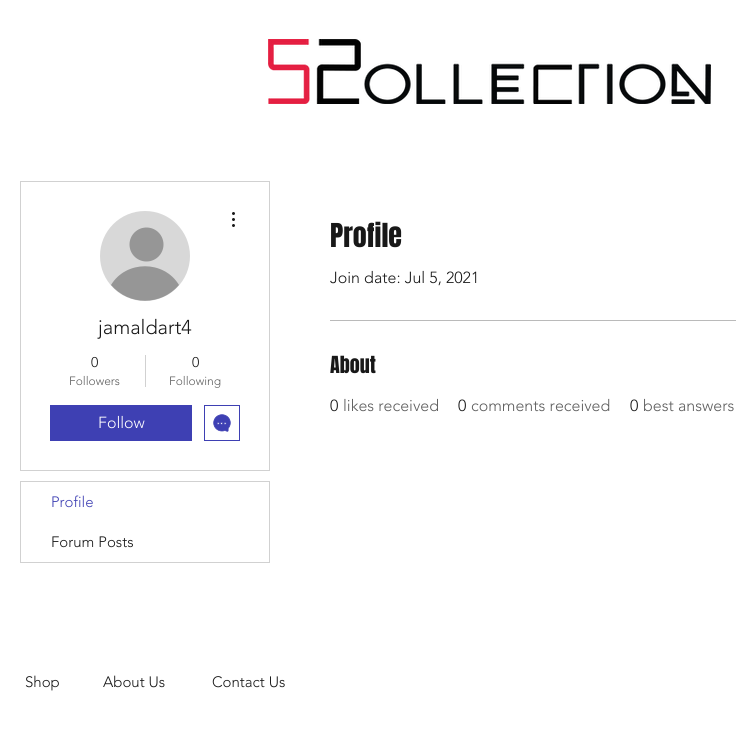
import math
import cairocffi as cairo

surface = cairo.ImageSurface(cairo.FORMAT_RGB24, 736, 753)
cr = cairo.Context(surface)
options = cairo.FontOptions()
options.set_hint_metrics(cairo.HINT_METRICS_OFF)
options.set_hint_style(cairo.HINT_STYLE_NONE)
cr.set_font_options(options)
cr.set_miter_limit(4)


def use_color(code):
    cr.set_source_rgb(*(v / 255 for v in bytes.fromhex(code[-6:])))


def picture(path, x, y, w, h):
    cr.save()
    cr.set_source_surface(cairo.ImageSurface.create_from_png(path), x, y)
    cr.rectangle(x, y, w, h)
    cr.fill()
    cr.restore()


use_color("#ffffff")
cr.paint()
picture("img1.png", 268, 39, 443, 65)
cr.rectangle(20.5, 181.5, 249, 289)
use_color("#d1d1d1")
cr.set_line_width(1)
cr.stroke()
use_color("#d8d8d8")
cr.arc(145, 256, 45, 0, 2 * math.pi)
cr.fill()
use_color("#969696")
cr.arc(146.5, 244.5, 17, 0, 2 * math.pi)
cr.fill()
cr.new_path()
cr.move_to(179, 285)
cr.curve_to(161, 306, 129, 306, 111, 285)
cr.curve_to(126, 260, 164, 260, 179, 285)
cr.close_path()
cr.fill()
picture("img2.png", 232, 212, 3, 15)
cr.select_font_face("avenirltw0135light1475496 Light")
cr.set_font_size(20)
use_color("#181818")
cr.move_to(98, 334)
cr.show_text("jamaldart4")
cr.set_font_size(14)
cr.move_to(91, 367)
cr.show_text("0")
cr.set_font_size(12)
use_color("#5d5d5d")
cr.move_to(69, 385)
cr.show_text("Followers")
use_color("#d1d1d1")
cr.rectangle(145, 355, 1, 32)
cr.fill()
cr.set_font_size(14)
use_color("#181818")
cr.move_to(192, 367)
cr.show_text("0")
cr.set_font_size(12)
use_color("#5d5d5d")
cr.move_to(169, 385)
cr.show_text("Following")
use_color("#3e40b3")
cr.rectangle(50, 405, 142, 36)
cr.fill()
cr.set_font_size(16)
use_color("#ffffff")
cr.move_to(98, 428)
cr.show_text("Follow")
cr.rectangle(204.5, 405.5, 35, 35)
use_color("#3e40b3")
cr.stroke()
picture("img3.png", 213, 414, 18, 18)
cr.rectangle(20.5, 481.5, 249, 81)
use_color("#d1d1d1")
cr.stroke()
cr.set_font_size(15)
use_color("#3e40b3")
cr.move_to(51, 507)
cr.show_text("Profile")
use_color("#181818")
cr.move_to(51, 547)
cr.show_text("Forum Posts")
cr.select_font_face("Anton")
cr.set_font_size(28)
cr.move_to(330, 247)
cr.show_text("Profile")
cr.select_font_face("avenirltw0135light1475496 Light")
cr.set_font_size(16)
cr.move_to(330, 283)
cr.show_text("Join date: Jul 5, 2021")
use_color("#bababa")
cr.rectangle(330, 320, 406, 1)
cr.fill()
cr.select_font_face("Anton")
cr.set_font_size(20)
use_color("#181818")
cr.move_to(330, 373)
cr.show_text("About")
cr.select_font_face("avenirltw0135light1475496 Light")
cr.set_font_size(16)
cr.move_to(330, 411)
cr.show_text("0")
use_color("#5d5d5d")
cr.move_to(343, 411)
cr.show_text("likes received")
use_color("#181818")
cr.move_to(458, 411)
cr.show_text("0")
use_color("#5d5d5d")
cr.move_to(471, 411)
cr.show_text("comments received")
use_color("#181818")
cr.move_to(630, 411)
cr.show_text("0")
use_color("#5d5d5d")
cr.move_to(643, 411)
cr.show_text("best answers")
cr.set_font_size(15)
use_color("#181818")
cr.move_to(25, 687)
cr.show_text("Shop")
cr.move_to(103, 687)
cr.show_text("About Us")
cr.move_to(212, 687)
cr.show_text("Contact Us")
surface.write_to_png("result.png")
